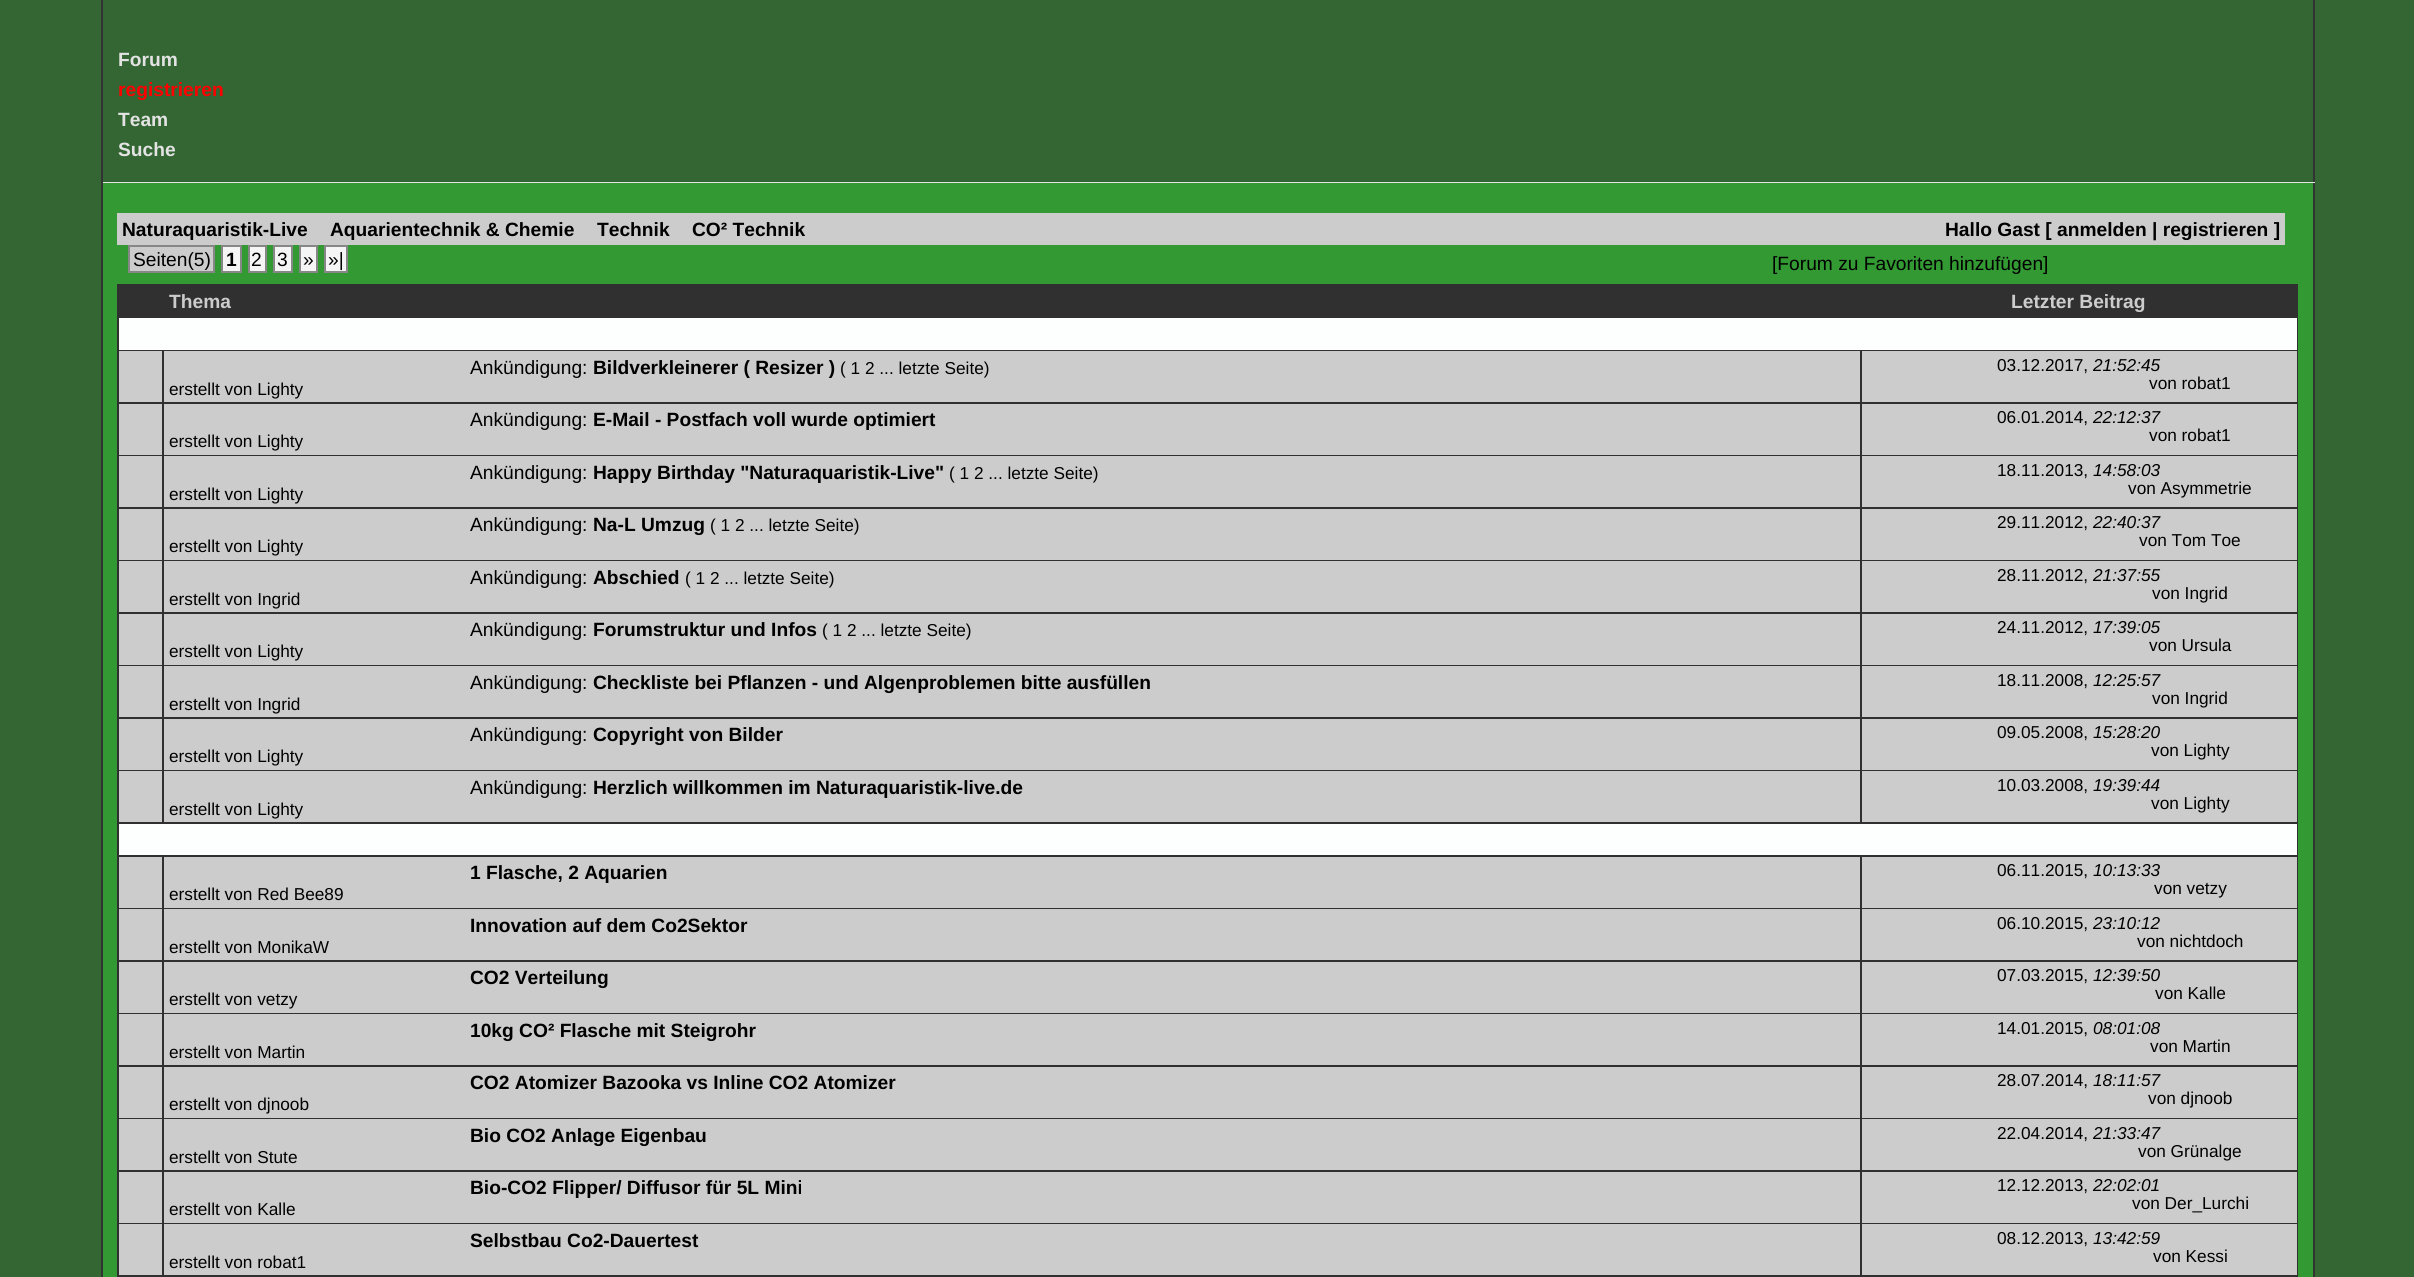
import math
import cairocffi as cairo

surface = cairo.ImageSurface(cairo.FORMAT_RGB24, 2414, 1277)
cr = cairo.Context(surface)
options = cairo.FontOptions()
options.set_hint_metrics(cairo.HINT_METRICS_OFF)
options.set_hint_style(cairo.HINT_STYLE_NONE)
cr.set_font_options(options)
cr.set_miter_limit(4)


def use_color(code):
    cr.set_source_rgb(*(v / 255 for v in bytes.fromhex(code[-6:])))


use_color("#336633")
cr.paint()
use_color("#333333")
cr.rectangle(2313, 0, 2, 1277)
cr.fill()
use_color("#e3e3e3")
cr.rectangle(101, 182, 2214, 1)
cr.fill()
use_color("#333333")
cr.rectangle(101, 0, 2, 1277)
cr.fill()
cr.select_font_face("Liberation Sans", cairo.FONT_SLANT_NORMAL, cairo.FONT_WEIGHT_BOLD)
cr.set_font_size(19.2)
use_color("#e3e3e3")
cr.move_to(118, 66)
cr.show_text("Forum")
use_color("#ff0000")
cr.move_to(118, 96)
cr.show_text("registrieren")
use_color("#e3e3e3")
cr.move_to(118, 126)
cr.show_text("Team")
cr.move_to(118, 156)
cr.show_text("Suche")
use_color("#339933")
cr.rectangle(103, 183, 2210, 1094)
cr.fill()
use_color("#cccccc")
cr.rectangle(117, 213, 2168, 32)
cr.fill()
use_color("#000000")
cr.move_to(122, 236)
cr.show_text("Naturaquaristik-Live")
cr.move_to(330, 236)
cr.show_text("Aquarientechnik & Chemie")
cr.move_to(597, 236)
cr.show_text("Technik")
cr.move_to(692, 236)
cr.show_text("CO² Technik")
cr.move_to(1945, 236)
cr.show_text("Hallo Gast [ anmelden | registrieren ]")
use_color("#cccccc")
cr.rectangle(129, 246, 85, 26)
cr.fill_preserve()
use_color("#878787")
cr.stroke()
cr.select_font_face("Liberation Sans")
use_color("#000000")
cr.move_to(133, 266)
cr.show_text("Seiten(5)")
use_color("#f5f5f5")
cr.rectangle(222, 246, 19, 26)
cr.fill_preserve()
use_color("#878787")
cr.stroke()
cr.select_font_face("Liberation Sans", cairo.FONT_SLANT_NORMAL, cairo.FONT_WEIGHT_BOLD)
use_color("#000000")
cr.move_to(226, 266)
cr.show_text("1")
use_color("#f5f5f5")
cr.rectangle(249, 246, 17, 26)
cr.fill_preserve()
use_color("#878787")
cr.stroke()
cr.select_font_face("Liberation Sans")
use_color("#000000")
cr.move_to(251, 266)
cr.show_text("2")
use_color("#f5f5f5")
cr.rectangle(274, 246, 18, 26)
cr.fill_preserve()
use_color("#878787")
cr.stroke()
use_color("#000000")
cr.move_to(277, 266)
cr.show_text("3")
use_color("#f5f5f5")
cr.rectangle(300, 246, 17, 26)
cr.fill_preserve()
use_color("#878787")
cr.stroke()
use_color("#000000")
cr.move_to(303, 266)
cr.show_text("»")
use_color("#f5f5f5")
cr.rectangle(325, 246, 22, 26)
cr.fill_preserve()
use_color("#878787")
cr.stroke()
use_color("#000000")
cr.move_to(328, 266)
cr.show_text("»|")
cr.move_to(1772, 270)
cr.show_text("[Forum zu Favoriten hinzufügen]")
use_color("#303030")
cr.rectangle(117, 284, 2181, 993)
cr.fill()
cr.select_font_face("Liberation Sans", cairo.FONT_SLANT_NORMAL, cairo.FONT_WEIGHT_BOLD)
use_color("#cccccc")
cr.move_to(169, 308)
cr.show_text("Thema")
cr.move_to(2011, 308)
cr.show_text("Letzter Beitrag")
use_color("#fdfefe")
cr.rectangle(119, 318, 2178, 32)
cr.fill()
use_color("#cccccc")
cr.rectangle(119, 351, 43, 51)
cr.fill()
cr.rectangle(164, 351, 1696, 51)
cr.fill()
cr.select_font_face("Liberation Sans")
use_color("#000000")
cr.move_to(470, 374)
cr.show_text("Ankündigung:")
cr.select_font_face("Liberation Sans", cairo.FONT_SLANT_NORMAL, cairo.FONT_WEIGHT_BOLD)
cr.move_to(593, 374)
cr.show_text("Bildverkleinerer ( Resizer )")
cr.select_font_face("Liberation Sans")
cr.set_font_size(17.25)
cr.move_to(840, 374)
cr.show_text("( 1 2 ... letzte Seite)")
cr.move_to(169, 395)
cr.show_text("erstellt von Lighty")
use_color("#cccccc")
cr.rectangle(1862, 351, 435, 51)
cr.fill()
use_color("#000000")
cr.move_to(1997, 371)
cr.show_text("03.12.2017,")
cr.select_font_face("Liberation Sans", cairo.FONT_SLANT_ITALIC)
cr.move_to(2093, 371)
cr.show_text("21:52:45")
cr.select_font_face("Liberation Sans")
cr.move_to(2149, 389)
cr.show_text("von robat1")
use_color("#cccccc")
cr.rectangle(119, 404, 43, 51)
cr.fill()
cr.rectangle(164, 404, 1696, 51)
cr.fill()
cr.set_font_size(19.2)
use_color("#000000")
cr.move_to(470, 426)
cr.show_text("Ankündigung:")
cr.select_font_face("Liberation Sans", cairo.FONT_SLANT_NORMAL, cairo.FONT_WEIGHT_BOLD)
cr.move_to(593, 426)
cr.show_text("E-Mail - Postfach voll wurde optimiert")
cr.select_font_face("Liberation Sans")
cr.set_font_size(17.25)
cr.move_to(169, 447)
cr.show_text("erstellt von Lighty")
use_color("#cccccc")
cr.rectangle(1862, 404, 435, 51)
cr.fill()
use_color("#000000")
cr.move_to(1997, 423)
cr.show_text("06.01.2014,")
cr.select_font_face("Liberation Sans", cairo.FONT_SLANT_ITALIC)
cr.move_to(2093, 423)
cr.show_text("22:12:37")
cr.select_font_face("Liberation Sans")
cr.move_to(2149, 441)
cr.show_text("von robat1")
use_color("#cccccc")
cr.rectangle(119, 456, 43, 51)
cr.fill()
cr.rectangle(164, 456, 1696, 51)
cr.fill()
cr.set_font_size(19.2)
use_color("#000000")
cr.move_to(470, 479)
cr.show_text("Ankündigung:")
cr.select_font_face("Liberation Sans", cairo.FONT_SLANT_NORMAL, cairo.FONT_WEIGHT_BOLD)
cr.move_to(593, 479)
cr.show_text("Happy Birthday \"Naturaquaristik-Live\"")
cr.select_font_face("Liberation Sans")
cr.set_font_size(17.25)
cr.move_to(949, 479)
cr.show_text("( 1 2 ... letzte Seite)")
cr.move_to(169, 500)
cr.show_text("erstellt von Lighty")
use_color("#cccccc")
cr.rectangle(1862, 456, 435, 51)
cr.fill()
use_color("#000000")
cr.move_to(1997, 476)
cr.show_text("18.11.2013,")
cr.select_font_face("Liberation Sans", cairo.FONT_SLANT_ITALIC)
cr.move_to(2093, 476)
cr.show_text("14:58:03")
cr.select_font_face("Liberation Sans")
cr.move_to(2128, 494)
cr.show_text("von Asymmetrie")
use_color("#cccccc")
cr.rectangle(119, 509, 43, 51)
cr.fill()
cr.rectangle(164, 509, 1696, 51)
cr.fill()
cr.set_font_size(19.2)
use_color("#000000")
cr.move_to(470, 531)
cr.show_text("Ankündigung:")
cr.select_font_face("Liberation Sans", cairo.FONT_SLANT_NORMAL, cairo.FONT_WEIGHT_BOLD)
cr.move_to(593, 531)
cr.show_text("Na-L Umzug")
cr.select_font_face("Liberation Sans")
cr.set_font_size(17.25)
cr.move_to(710, 531)
cr.show_text("( 1 2 ... letzte Seite)")
cr.move_to(169, 552)
cr.show_text("erstellt von Lighty")
use_color("#cccccc")
cr.rectangle(1862, 509, 435, 51)
cr.fill()
use_color("#000000")
cr.move_to(1997, 528)
cr.show_text("29.11.2012,")
cr.select_font_face("Liberation Sans", cairo.FONT_SLANT_ITALIC)
cr.move_to(2093, 528)
cr.show_text("22:40:37")
cr.select_font_face("Liberation Sans")
cr.move_to(2139, 546)
cr.show_text("von Tom Toe")
use_color("#cccccc")
cr.rectangle(119, 561, 43, 51)
cr.fill()
cr.rectangle(164, 561, 1696, 51)
cr.fill()
cr.set_font_size(19.2)
use_color("#000000")
cr.move_to(470, 584)
cr.show_text("Ankündigung:")
cr.select_font_face("Liberation Sans", cairo.FONT_SLANT_NORMAL, cairo.FONT_WEIGHT_BOLD)
cr.move_to(593, 584)
cr.show_text("Abschied")
cr.select_font_face("Liberation Sans")
cr.set_font_size(17.25)
cr.move_to(685, 584)
cr.show_text("( 1 2 ... letzte Seite)")
cr.move_to(169, 605)
cr.show_text("erstellt von Ingrid")
use_color("#cccccc")
cr.rectangle(1862, 561, 435, 51)
cr.fill()
use_color("#000000")
cr.move_to(1997, 581)
cr.show_text("28.11.2012,")
cr.select_font_face("Liberation Sans", cairo.FONT_SLANT_ITALIC)
cr.move_to(2093, 581)
cr.show_text("21:37:55")
cr.select_font_face("Liberation Sans")
cr.move_to(2152, 599)
cr.show_text("von Ingrid")
use_color("#cccccc")
cr.rectangle(119, 614, 43, 51)
cr.fill()
cr.rectangle(164, 614, 1696, 51)
cr.fill()
cr.set_font_size(19.2)
use_color("#000000")
cr.move_to(470, 636)
cr.show_text("Ankündigung:")
cr.select_font_face("Liberation Sans", cairo.FONT_SLANT_NORMAL, cairo.FONT_WEIGHT_BOLD)
cr.move_to(593, 636)
cr.show_text("Forumstruktur und Infos")
cr.select_font_face("Liberation Sans")
cr.set_font_size(17.25)
cr.move_to(822, 636)
cr.show_text("( 1 2 ... letzte Seite)")
cr.move_to(169, 657)
cr.show_text("erstellt von Lighty")
use_color("#cccccc")
cr.rectangle(1862, 614, 435, 51)
cr.fill()
use_color("#000000")
cr.move_to(1997, 633)
cr.show_text("24.11.2012,")
cr.select_font_face("Liberation Sans", cairo.FONT_SLANT_ITALIC)
cr.move_to(2093, 633)
cr.show_text("17:39:05")
cr.select_font_face("Liberation Sans")
cr.move_to(2149, 651)
cr.show_text("von Ursula")
use_color("#cccccc")
cr.rectangle(119, 666, 43, 51)
cr.fill()
cr.rectangle(164, 666, 1696, 51)
cr.fill()
cr.set_font_size(19.2)
use_color("#000000")
cr.move_to(470, 689)
cr.show_text("Ankündigung:")
cr.select_font_face("Liberation Sans", cairo.FONT_SLANT_NORMAL, cairo.FONT_WEIGHT_BOLD)
cr.move_to(593, 689)
cr.show_text("Checkliste bei Pflanzen - und Algenproblemen bitte ausfüllen")
cr.select_font_face("Liberation Sans")
cr.set_font_size(17.25)
cr.move_to(169, 710)
cr.show_text("erstellt von Ingrid")
use_color("#cccccc")
cr.rectangle(1862, 666, 435, 51)
cr.fill()
use_color("#000000")
cr.move_to(1997, 686)
cr.show_text("18.11.2008,")
cr.select_font_face("Liberation Sans", cairo.FONT_SLANT_ITALIC)
cr.move_to(2093, 686)
cr.show_text("12:25:57")
cr.select_font_face("Liberation Sans")
cr.move_to(2152, 704)
cr.show_text("von Ingrid")
use_color("#cccccc")
cr.rectangle(119, 719, 43, 51)
cr.fill()
cr.rectangle(164, 719, 1696, 51)
cr.fill()
cr.set_font_size(19.2)
use_color("#000000")
cr.move_to(470, 741)
cr.show_text("Ankündigung:")
cr.select_font_face("Liberation Sans", cairo.FONT_SLANT_NORMAL, cairo.FONT_WEIGHT_BOLD)
cr.move_to(593, 741)
cr.show_text("Copyright von Bilder")
cr.select_font_face("Liberation Sans")
cr.set_font_size(17.25)
cr.move_to(169, 762)
cr.show_text("erstellt von Lighty")
use_color("#cccccc")
cr.rectangle(1862, 719, 435, 51)
cr.fill()
use_color("#000000")
cr.move_to(1997, 738)
cr.show_text("09.05.2008,")
cr.select_font_face("Liberation Sans", cairo.FONT_SLANT_ITALIC)
cr.move_to(2093, 738)
cr.show_text("15:28:20")
cr.select_font_face("Liberation Sans")
cr.move_to(2151, 756)
cr.show_text("von Lighty")
use_color("#cccccc")
cr.rectangle(119, 771, 43, 51)
cr.fill()
cr.rectangle(164, 771, 1696, 51)
cr.fill()
cr.set_font_size(19.2)
use_color("#000000")
cr.move_to(470, 794)
cr.show_text("Ankündigung:")
cr.select_font_face("Liberation Sans", cairo.FONT_SLANT_NORMAL, cairo.FONT_WEIGHT_BOLD)
cr.move_to(593, 794)
cr.show_text("Herzlich willkommen im Naturaquaristik-live.de")
cr.select_font_face("Liberation Sans")
cr.set_font_size(17.25)
cr.move_to(169, 815)
cr.show_text("erstellt von Lighty")
use_color("#cccccc")
cr.rectangle(1862, 771, 435, 51)
cr.fill()
use_color("#000000")
cr.move_to(1997, 791)
cr.show_text("10.03.2008,")
cr.select_font_face("Liberation Sans", cairo.FONT_SLANT_ITALIC)
cr.move_to(2093, 791)
cr.show_text("19:39:44")
cr.select_font_face("Liberation Sans")
cr.move_to(2151, 809)
cr.show_text("von Lighty")
use_color("#fdfefe")
cr.rectangle(119, 824, 2178, 31)
cr.fill()
use_color("#cccccc")
cr.rectangle(119, 857, 43, 51)
cr.fill()
cr.rectangle(164, 857, 1696, 51)
cr.fill()
cr.select_font_face("Liberation Sans", cairo.FONT_SLANT_NORMAL, cairo.FONT_WEIGHT_BOLD)
cr.set_font_size(19.2)
use_color("#000000")
cr.move_to(470, 879)
cr.show_text("1 Flasche, 2 Aquarien")
cr.select_font_face("Liberation Sans")
cr.set_font_size(17.25)
cr.move_to(169, 900)
cr.show_text("erstellt von Red Bee89")
use_color("#cccccc")
cr.rectangle(1862, 857, 435, 51)
cr.fill()
use_color("#000000")
cr.move_to(1997, 876)
cr.show_text("06.11.2015,")
cr.select_font_face("Liberation Sans", cairo.FONT_SLANT_ITALIC)
cr.move_to(2093, 876)
cr.show_text("10:13:33")
cr.select_font_face("Liberation Sans")
cr.move_to(2154, 894)
cr.show_text("von vetzy")
use_color("#cccccc")
cr.rectangle(119, 909, 43, 51)
cr.fill()
cr.rectangle(164, 909, 1696, 51)
cr.fill()
cr.select_font_face("Liberation Sans", cairo.FONT_SLANT_NORMAL, cairo.FONT_WEIGHT_BOLD)
cr.set_font_size(19.2)
use_color("#000000")
cr.move_to(470, 932)
cr.show_text("Innovation auf dem Co2Sektor")
cr.select_font_face("Liberation Sans")
cr.set_font_size(17.25)
cr.move_to(169, 953)
cr.show_text("erstellt von MonikaW")
use_color("#cccccc")
cr.rectangle(1862, 909, 435, 51)
cr.fill()
use_color("#000000")
cr.move_to(1997, 929)
cr.show_text("06.10.2015,")
cr.select_font_face("Liberation Sans", cairo.FONT_SLANT_ITALIC)
cr.move_to(2093, 929)
cr.show_text("23:10:12")
cr.select_font_face("Liberation Sans")
cr.move_to(2137, 947)
cr.show_text("von nichtdoch")
use_color("#cccccc")
cr.rectangle(119, 962, 43, 51)
cr.fill()
cr.rectangle(164, 962, 1696, 51)
cr.fill()
cr.select_font_face("Liberation Sans", cairo.FONT_SLANT_NORMAL, cairo.FONT_WEIGHT_BOLD)
cr.set_font_size(19.2)
use_color("#000000")
cr.move_to(470, 984)
cr.show_text("CO2 Verteilung")
cr.select_font_face("Liberation Sans")
cr.set_font_size(17.25)
cr.move_to(169, 1005)
cr.show_text("erstellt von vetzy")
use_color("#cccccc")
cr.rectangle(1862, 962, 435, 51)
cr.fill()
use_color("#000000")
cr.move_to(1997, 981)
cr.show_text("07.03.2015,")
cr.select_font_face("Liberation Sans", cairo.FONT_SLANT_ITALIC)
cr.move_to(2093, 981)
cr.show_text("12:39:50")
cr.select_font_face("Liberation Sans")
cr.move_to(2155, 999)
cr.show_text("von Kalle")
use_color("#cccccc")
cr.rectangle(119, 1014, 43, 51)
cr.fill()
cr.rectangle(164, 1014, 1696, 51)
cr.fill()
cr.select_font_face("Liberation Sans", cairo.FONT_SLANT_NORMAL, cairo.FONT_WEIGHT_BOLD)
cr.set_font_size(19.2)
use_color("#000000")
cr.move_to(470, 1037)
cr.show_text("10kg CO² Flasche mit Steigrohr")
cr.select_font_face("Liberation Sans")
cr.set_font_size(17.25)
cr.move_to(169, 1058)
cr.show_text("erstellt von Martin")
use_color("#cccccc")
cr.rectangle(1862, 1014, 435, 51)
cr.fill()
use_color("#000000")
cr.move_to(1997, 1034)
cr.show_text("14.01.2015,")
cr.select_font_face("Liberation Sans", cairo.FONT_SLANT_ITALIC)
cr.move_to(2093, 1034)
cr.show_text("08:01:08")
cr.select_font_face("Liberation Sans")
cr.move_to(2150, 1052)
cr.show_text("von Martin")
use_color("#cccccc")
cr.rectangle(119, 1067, 43, 51)
cr.fill()
cr.rectangle(164, 1067, 1696, 51)
cr.fill()
cr.select_font_face("Liberation Sans", cairo.FONT_SLANT_NORMAL, cairo.FONT_WEIGHT_BOLD)
cr.set_font_size(19.2)
use_color("#000000")
cr.move_to(470, 1089)
cr.show_text("CO2 Atomizer Bazooka vs Inline CO2 Atomizer")
cr.select_font_face("Liberation Sans")
cr.set_font_size(17.25)
cr.move_to(169, 1110)
cr.show_text("erstellt von djnoob")
use_color("#cccccc")
cr.rectangle(1862, 1067, 435, 51)
cr.fill()
use_color("#000000")
cr.move_to(1997, 1086)
cr.show_text("28.07.2014,")
cr.select_font_face("Liberation Sans", cairo.FONT_SLANT_ITALIC)
cr.move_to(2093, 1086)
cr.show_text("18:11:57")
cr.select_font_face("Liberation Sans")
cr.move_to(2148, 1104)
cr.show_text("von djnoob")
use_color("#cccccc")
cr.rectangle(119, 1119, 43, 51)
cr.fill()
cr.rectangle(164, 1119, 1696, 51)
cr.fill()
cr.select_font_face("Liberation Sans", cairo.FONT_SLANT_NORMAL, cairo.FONT_WEIGHT_BOLD)
cr.set_font_size(19.2)
use_color("#000000")
cr.move_to(470, 1142)
cr.show_text("Bio CO2 Anlage Eigenbau")
cr.select_font_face("Liberation Sans")
cr.set_font_size(17.25)
cr.move_to(169, 1163)
cr.show_text("erstellt von Stute")
use_color("#cccccc")
cr.rectangle(1862, 1119, 435, 51)
cr.fill()
use_color("#000000")
cr.move_to(1997, 1139)
cr.show_text("22.04.2014,")
cr.select_font_face("Liberation Sans", cairo.FONT_SLANT_ITALIC)
cr.move_to(2093, 1139)
cr.show_text("21:33:47")
cr.select_font_face("Liberation Sans")
cr.move_to(2138, 1157)
cr.show_text("von Grünalge")
use_color("#cccccc")
cr.rectangle(119, 1172, 43, 51)
cr.fill()
cr.rectangle(164, 1172, 1696, 51)
cr.fill()
cr.select_font_face("Liberation Sans", cairo.FONT_SLANT_NORMAL, cairo.FONT_WEIGHT_BOLD)
cr.set_font_size(19.2)
use_color("#000000")
cr.move_to(470, 1194)
cr.show_text("Bio-CO2 Flipper/ Diffusor für 5L Mini")
cr.select_font_face("Liberation Sans")
cr.set_font_size(17.25)
cr.move_to(169, 1215)
cr.show_text("erstellt von Kalle")
use_color("#cccccc")
cr.rectangle(1862, 1172, 435, 51)
cr.fill()
use_color("#000000")
cr.move_to(1997, 1191)
cr.show_text("12.12.2013,")
cr.select_font_face("Liberation Sans", cairo.FONT_SLANT_ITALIC)
cr.move_to(2093, 1191)
cr.show_text("22:02:01")
cr.select_font_face("Liberation Sans")
cr.move_to(2132, 1209)
cr.show_text("von Der_Lurchi")
use_color("#cccccc")
cr.rectangle(119, 1224, 43, 51)
cr.fill()
cr.rectangle(164, 1224, 1696, 51)
cr.fill()
cr.select_font_face("Liberation Sans", cairo.FONT_SLANT_NORMAL, cairo.FONT_WEIGHT_BOLD)
cr.set_font_size(19.2)
use_color("#000000")
cr.move_to(470, 1247)
cr.show_text("Selbstbau Co2-Dauertest")
cr.select_font_face("Liberation Sans")
cr.set_font_size(17.25)
cr.move_to(169, 1268)
cr.show_text("erstellt von robat1")
use_color("#cccccc")
cr.rectangle(1862, 1224, 435, 51)
cr.fill()
use_color("#000000")
cr.move_to(1997, 1244)
cr.show_text("08.12.2013,")
cr.select_font_face("Liberation Sans", cairo.FONT_SLANT_ITALIC)
cr.move_to(2093, 1244)
cr.show_text("13:42:59")
cr.select_font_face("Liberation Sans")
cr.move_to(2153, 1262)
cr.show_text("von Kessi")
surface.write_to_png("result.png")
